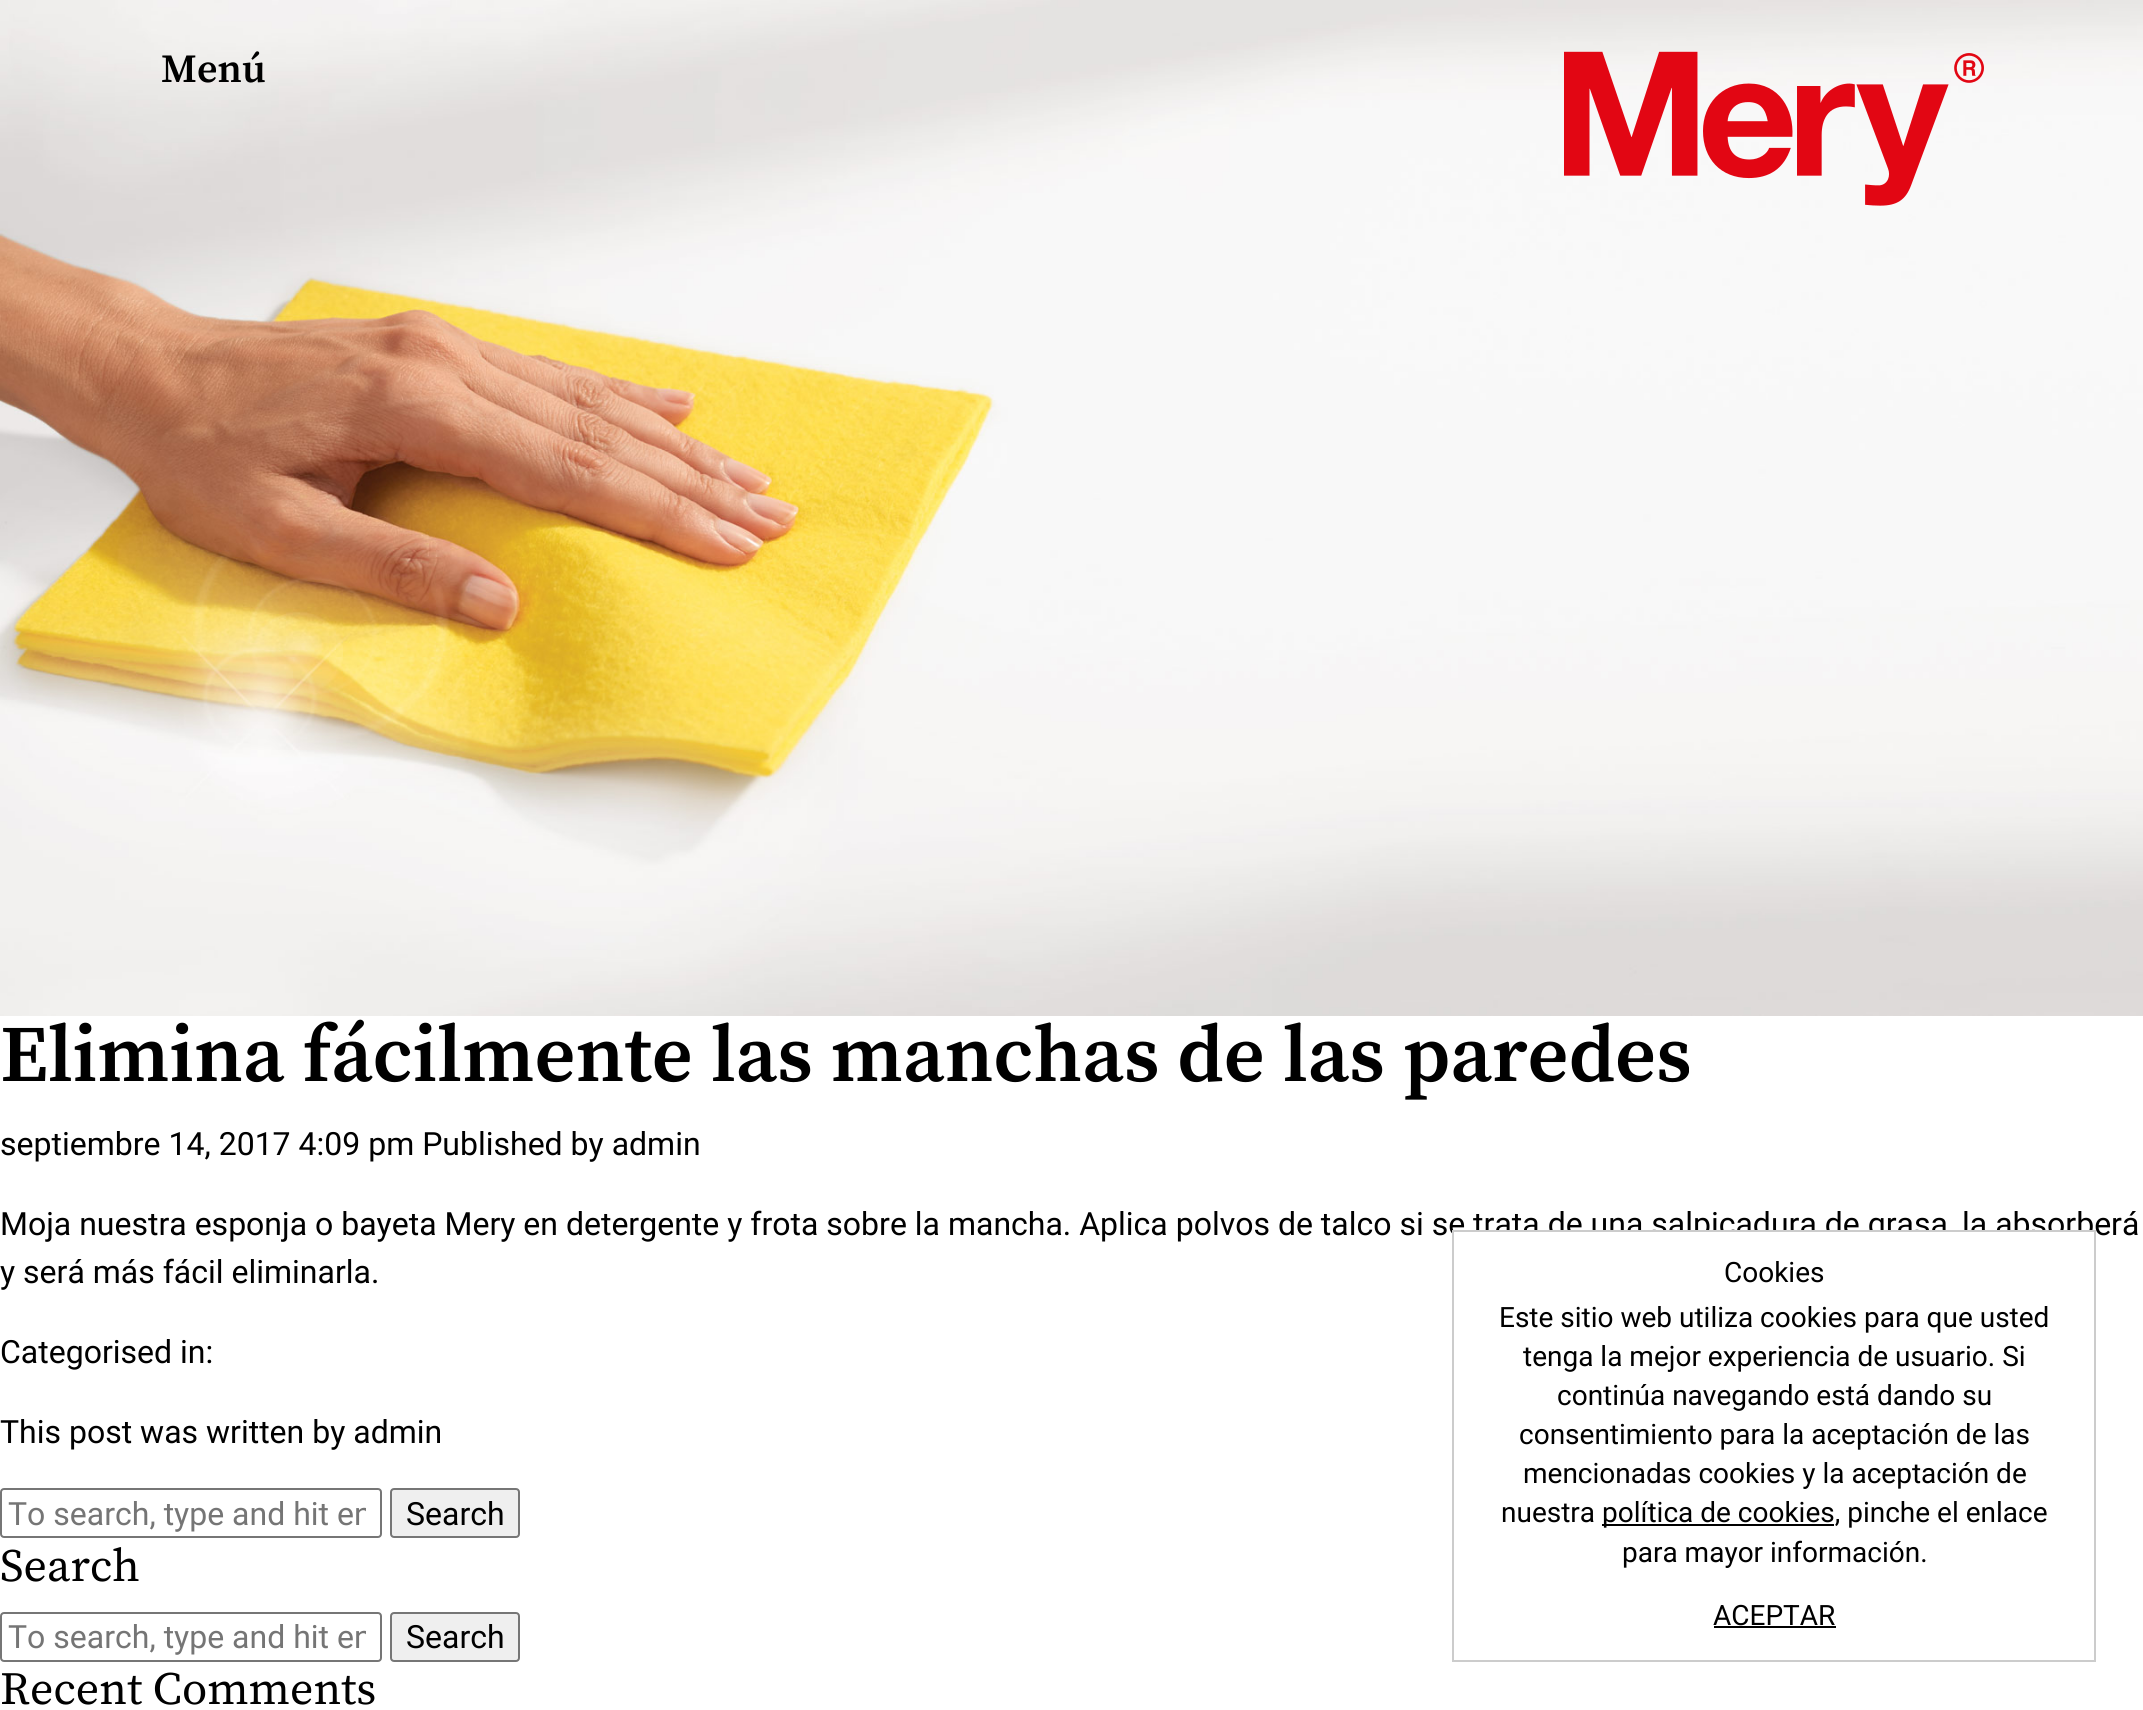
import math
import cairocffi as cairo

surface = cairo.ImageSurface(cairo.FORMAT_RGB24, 2143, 1710)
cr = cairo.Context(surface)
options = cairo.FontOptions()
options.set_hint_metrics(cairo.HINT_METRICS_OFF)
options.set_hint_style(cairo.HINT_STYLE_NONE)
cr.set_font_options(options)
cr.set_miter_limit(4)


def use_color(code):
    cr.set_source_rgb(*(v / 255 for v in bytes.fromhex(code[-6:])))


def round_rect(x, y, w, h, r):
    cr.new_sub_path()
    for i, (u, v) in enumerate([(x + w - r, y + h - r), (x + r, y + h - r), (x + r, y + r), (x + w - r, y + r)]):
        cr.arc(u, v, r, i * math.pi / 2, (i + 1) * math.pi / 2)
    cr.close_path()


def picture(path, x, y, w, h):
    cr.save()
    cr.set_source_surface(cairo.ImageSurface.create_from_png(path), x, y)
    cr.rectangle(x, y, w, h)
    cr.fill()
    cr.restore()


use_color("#ffffff")
cr.paint()
picture("img2.png", 0, 0, 2143, 1016)
cr.select_font_face("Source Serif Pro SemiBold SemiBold")
cr.set_font_size(40)
use_color("#000000")
cr.move_to(161, 82)
cr.show_text("Menú")
picture("img1.png", 1564, 51, 420, 155)
cr.set_font_size(80)
cr.move_to(0, 1081)
cr.show_text("Elimina fácilmente las manchas de las paredes")
cr.select_font_face("Roboto")
cr.set_font_size(32)
cr.move_to(0, 1155)
cr.show_text("septiembre 14, 2017 4:09 pm Published by admin")
cr.move_to(0, 1235)
cr.show_text("Moja nuestra esponja o bayeta Mery en detergente y frota sobre la mancha. Aplica polvos de talco si se trata de una salpicadura de grasa, la absorberá")
cr.move_to(0, 1283)
cr.show_text("y será más fácil eliminarla.")
cr.move_to(0, 1363)
cr.show_text("Categorised in:")
cr.move_to(0, 1443)
cr.show_text("This post was written by admin")
round_rect(1, 1489, 380, 48, 3)
use_color("#767676")
cr.stroke()
cr.save()
cr.rectangle(8, 1494, 358, 38)
cr.clip()
use_color("#757575")
cr.move_to(8, 1525)
cr.show_text("To search, type and hit en")
cr.restore()
use_color("#efefef")
round_rect(391, 1489, 128, 48, 3)
cr.fill_preserve()
use_color("#767676")
cr.stroke()
use_color("#000000")
cr.move_to(406, 1525)
cr.show_text("Search")
cr.select_font_face("Source Serif Pro")
cr.set_font_size(46)
cr.move_to(0, 1581)
cr.show_text("Search")
round_rect(1, 1613, 380, 48, 3)
use_color("#767676")
cr.stroke()
cr.save()
cr.rectangle(8, 1618, 358, 38)
cr.clip()
cr.select_font_face("Roboto")
cr.set_font_size(32)
use_color("#757575")
cr.move_to(8, 1648)
cr.show_text("To search, type and hit en")
cr.restore()
use_color("#efefef")
round_rect(391, 1613, 128, 48, 3)
cr.fill_preserve()
use_color("#767676")
cr.stroke()
cr.select_font_face("Roboto")
cr.set_font_size(32)
use_color("#000000")
cr.move_to(406, 1648)
cr.show_text("Search")
cr.select_font_face("Source Serif Pro")
cr.set_font_size(46)
cr.move_to(0, 1704)
cr.show_text("Recent Comments")
use_color("#ffffff")
cr.rectangle(1454, 1232, 638, 10)
cr.fill()
cr.rectangle(1453, 1231, 642, 430)
use_color("#cccccc")
cr.stroke()
cr.select_font_face("Roboto")
cr.set_font_size(28)
use_color("#000000")
cr.move_to(1724, 1282)
cr.show_text("Cookies")
cr.move_to(1499, 1327)
cr.show_text("Este sitio web utiliza cookies para que usted")
cr.move_to(1523, 1366)
cr.show_text("tenga la mejor experiencia de usuario. Si")
cr.move_to(1557, 1405)
cr.show_text("continúa navegando está dando su")
cr.move_to(1519, 1444)
cr.show_text("consentimiento para la aceptación de las")
cr.move_to(1523, 1483)
cr.show_text("mencionadas cookies y la aceptación de")
cr.move_to(1501, 1522)
cr.show_text("nuestra")
cr.rectangle(1602, 1524, 232, 2)
cr.fill()
cr.move_to(1602, 1522)
cr.show_text("política de cookies, pinche el enlace")
cr.move_to(1622, 1562)
cr.show_text("para mayor información.")
cr.move_to(1713, 1625)
cr.show_text("ACEPTAR")
cr.rectangle(1714, 1626, 122, 2)
cr.fill()
surface.write_to_png("result.png")
